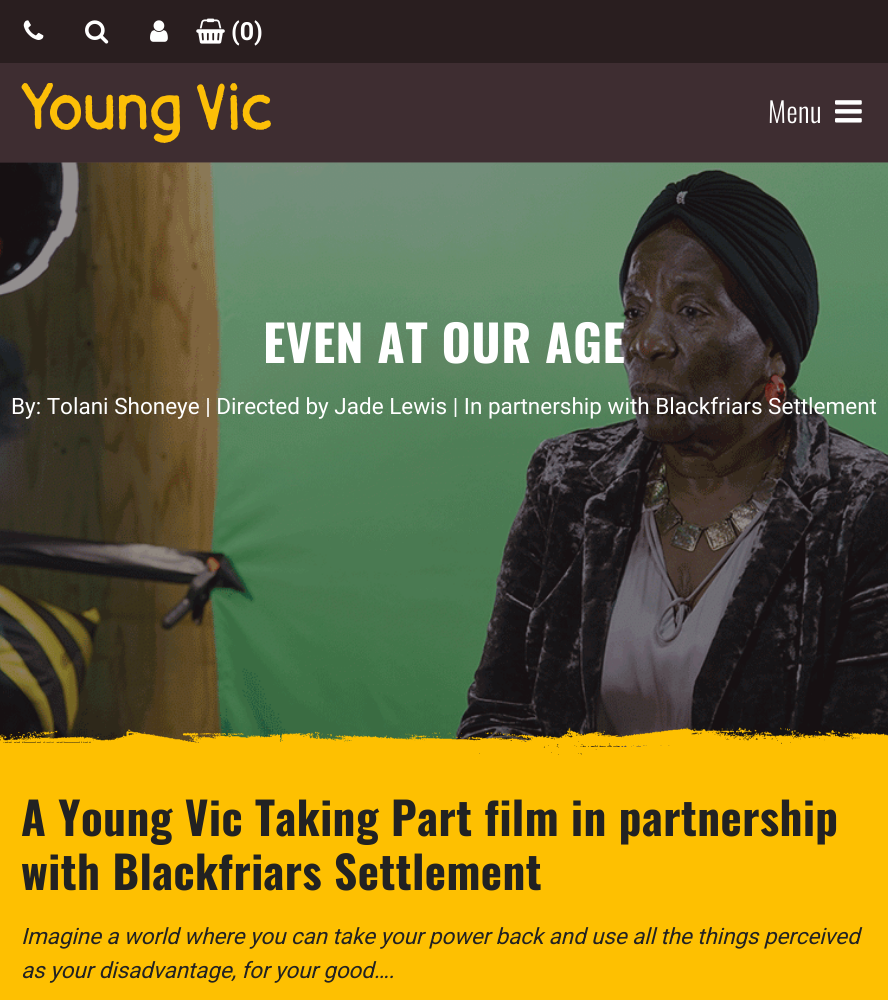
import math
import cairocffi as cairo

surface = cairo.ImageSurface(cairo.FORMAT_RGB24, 888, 1000)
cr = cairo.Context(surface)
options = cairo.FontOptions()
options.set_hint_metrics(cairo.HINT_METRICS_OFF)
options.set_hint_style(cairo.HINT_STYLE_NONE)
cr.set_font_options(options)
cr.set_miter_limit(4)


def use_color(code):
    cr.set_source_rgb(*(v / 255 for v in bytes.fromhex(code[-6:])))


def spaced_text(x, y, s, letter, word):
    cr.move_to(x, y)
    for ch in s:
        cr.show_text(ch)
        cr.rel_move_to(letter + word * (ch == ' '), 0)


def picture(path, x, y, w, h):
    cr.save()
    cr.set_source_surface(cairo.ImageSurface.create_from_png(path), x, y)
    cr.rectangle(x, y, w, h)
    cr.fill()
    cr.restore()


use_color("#fec001")
cr.paint()
use_color("#291e1f")
cr.rectangle(0, 0, 888, 63)
cr.fill()
picture("img1.png", 23, 20, 21, 20)
picture("img2.png", 85, 20, 24, 24)
picture("img3.png", 150, 20, 18, 22)
picture("img4.png", 196, 18, 29, 26)
cr.select_font_face("Roboto", cairo.FONT_SLANT_NORMAL, cairo.FONT_WEIGHT_BOLD)
cr.set_font_size(25)
use_color("#ffffff")
cr.move_to(231, 40)
cr.show_text("(0)")
use_color("#3e2d31")
cr.rectangle(0, 63, 888, 100)
cr.fill()
picture("img5.png", 21, 83, 250, 60)
cr.select_font_face("Oswald Light")
cr.set_font_size(28)
use_color("#ffffff")
spaced_text(768, 123, "Menu", 0.5, 0)
picture("img6.png", 835, 100, 27, 23)
picture("img7.png", 0, 162, 888, 593)
cr.select_font_face("Oswald", cairo.FONT_SLANT_NORMAL, cairo.FONT_WEIGHT_BOLD)
cr.set_font_size(50)
spaced_text(263, 363, "EVEN AT OUR AGE", 0.5, 0)
cr.select_font_face("Roboto")
cr.set_font_size(22.5)
cr.move_to(11, 414)
cr.show_text("By: Tolani Shoneye | Directed by Jade Lewis | In partnership with Blackfriars Settlement")
picture("img8.png", 0, 727, 888, 28)
cr.select_font_face("Oswald", cairo.FONT_SLANT_NORMAL, cairo.FONT_WEIGHT_BOLD)
cr.set_font_size(45)
use_color("#222222")
spaced_text(21, 836, "A Young Vic Taking Part film in partnership", 0.5, 0)
spaced_text(21, 890, "with Blackfriars Settlement", 0.5, 0)
cr.select_font_face("Roboto", cairo.FONT_SLANT_ITALIC)
cr.set_font_size(22.5)
spaced_text(21, 944, "Imagine a world where you can take your power back and use all the things perceived", -0.12, 0)
spaced_text(21, 978, "as your disadvantage, for your good….", -0.12, 0)
surface.write_to_png("result.png")
